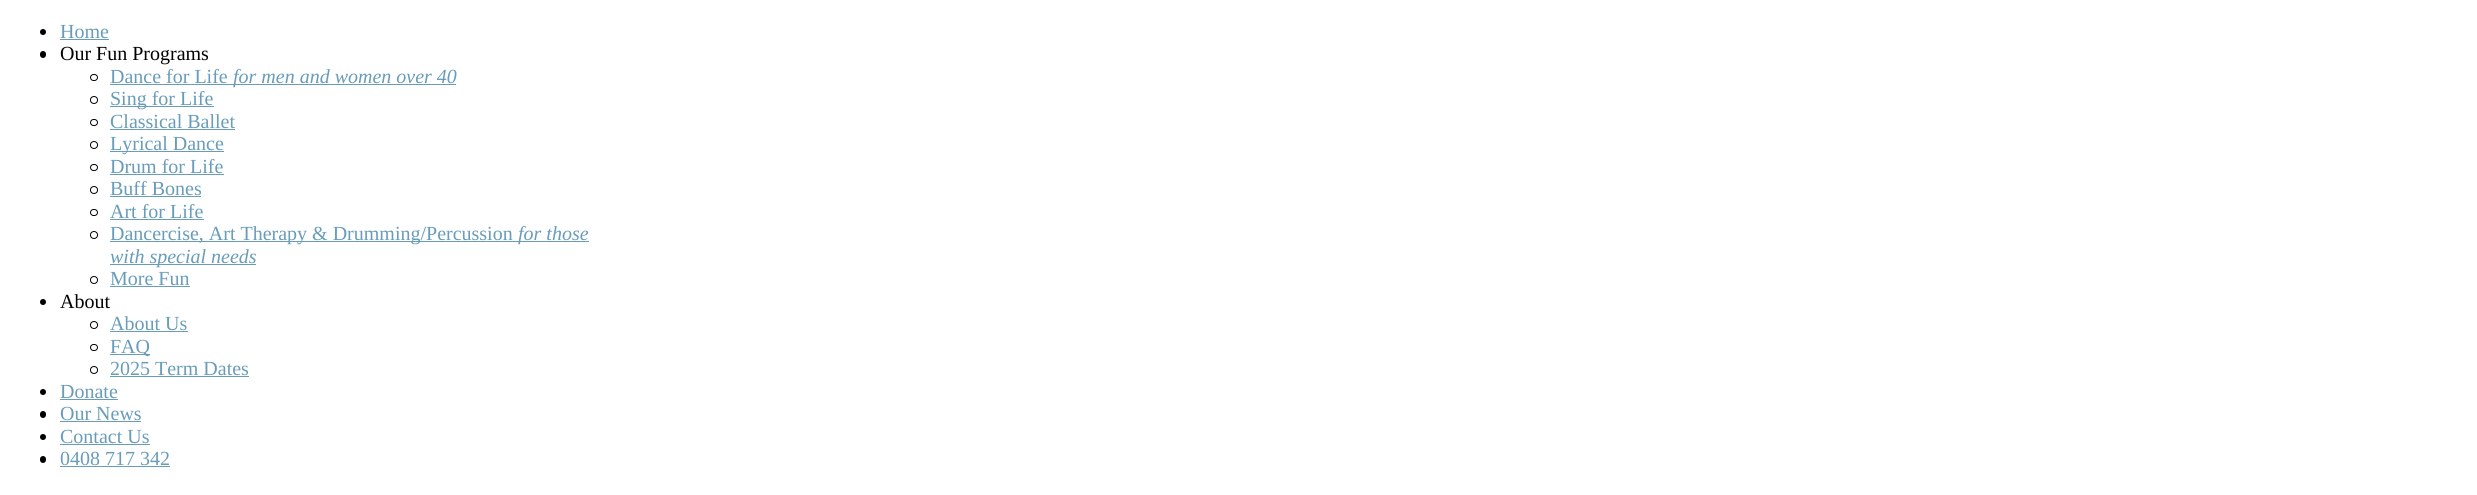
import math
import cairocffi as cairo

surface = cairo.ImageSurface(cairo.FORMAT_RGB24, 2477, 495)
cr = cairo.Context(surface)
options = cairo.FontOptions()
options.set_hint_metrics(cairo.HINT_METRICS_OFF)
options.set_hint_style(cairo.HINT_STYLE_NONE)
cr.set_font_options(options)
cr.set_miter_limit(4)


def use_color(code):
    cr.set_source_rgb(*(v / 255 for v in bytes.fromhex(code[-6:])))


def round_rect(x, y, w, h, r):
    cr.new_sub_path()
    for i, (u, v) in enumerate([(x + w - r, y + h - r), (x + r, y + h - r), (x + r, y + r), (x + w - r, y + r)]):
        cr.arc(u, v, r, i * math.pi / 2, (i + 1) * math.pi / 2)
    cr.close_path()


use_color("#ffffff")
cr.paint()
use_color("#000000")
cr.arc(43, 32, 3, 0, 2 * math.pi)
cr.fill()
cr.select_font_face("Liberation Serif")
cr.set_font_size(20)
use_color("#689cb9")
cr.move_to(60, 38)
cr.show_text("Home")
cr.rectangle(60, 39, 49, 1)
cr.fill()
use_color("#000000")
round_rect(40, 51, 6, 7, 3)
cr.fill()
cr.move_to(60, 60)
cr.show_text("Our Fun Programs")
round_rect(90.5, 74.5, 7, 6, 3)
cr.set_line_width(1)
cr.stroke()
use_color("#689cb9")
cr.move_to(110, 83)
cr.show_text("Dance for Life")
cr.rectangle(110, 84, 346, 1)
cr.fill()
cr.select_font_face("Liberation Serif", cairo.FONT_SLANT_ITALIC)
cr.move_to(233, 83)
cr.show_text("for men and women over 40")
cr.new_path()
cr.arc(94, 100, 3.5, 0, 2 * math.pi)
use_color("#000000")
cr.stroke()
use_color("#689cb9")
cr.rectangle(110, 106, 104, 1)
cr.fill()
cr.select_font_face("Liberation Serif")
cr.move_to(110, 105)
cr.show_text("Sing for Life")
round_rect(90.5, 119.5, 7, 6, 3)
use_color("#000000")
cr.stroke()
use_color("#689cb9")
cr.move_to(110, 128)
cr.show_text("Classical Ballet")
cr.rectangle(110, 129, 125, 1)
cr.fill()
cr.arc(94, 145, 3.5, 0, 2 * math.pi)
use_color("#000000")
cr.stroke()
use_color("#689cb9")
cr.rectangle(110, 151, 114, 1)
cr.fill()
cr.move_to(110, 150)
cr.show_text("Lyrical Dance")
round_rect(90.5, 164.5, 7, 6, 3)
use_color("#000000")
cr.stroke()
use_color("#689cb9")
cr.move_to(110, 173)
cr.show_text("Drum for Life")
cr.rectangle(110, 174, 114, 1)
cr.fill()
cr.arc(94, 190, 3.5, 0, 2 * math.pi)
use_color("#000000")
cr.stroke()
use_color("#689cb9")
cr.move_to(110, 195)
cr.show_text("Buff Bones")
cr.rectangle(110, 196, 91, 1)
cr.fill()
round_rect(90.5, 209.5, 7, 6, 3)
use_color("#000000")
cr.stroke()
use_color("#689cb9")
cr.move_to(110, 218)
cr.show_text("Art for Life")
cr.rectangle(110, 219, 94, 1)
cr.fill()
cr.arc(94, 235, 3.5, 0, 2 * math.pi)
use_color("#000000")
cr.stroke()
use_color("#689cb9")
cr.rectangle(110, 241, 479, 1)
cr.fill()
cr.move_to(110, 240)
cr.show_text("Dancercise, Art Therapy & Drumming/Percussion")
cr.select_font_face("Liberation Serif", cairo.FONT_SLANT_ITALIC)
cr.move_to(518, 240)
cr.show_text("for those")
cr.rectangle(110, 264, 146, 1)
cr.fill()
cr.move_to(110, 263)
cr.show_text("with special needs")
cr.new_path()
cr.arc(94, 280, 3.5, 0, 2 * math.pi)
use_color("#000000")
cr.stroke()
cr.select_font_face("Liberation Serif")
use_color("#689cb9")
cr.move_to(110, 285)
cr.show_text("More Fun")
cr.rectangle(110, 286, 80, 1)
cr.fill()
use_color("#000000")
cr.arc(43, 302, 3, 0, 2 * math.pi)
cr.fill()
cr.move_to(60, 308)
cr.show_text("About")
cr.new_path()
cr.arc(94, 325, 3.5, 0, 2 * math.pi)
cr.stroke()
use_color("#689cb9")
cr.move_to(110, 330)
cr.show_text("About Us")
cr.rectangle(110, 331, 78, 1)
cr.fill()
round_rect(90.5, 344.5, 7, 6, 3)
use_color("#000000")
cr.stroke()
use_color("#689cb9")
cr.rectangle(110, 354, 40, 1)
cr.fill()
cr.move_to(110, 353)
cr.show_text("FAQ")
cr.new_path()
cr.arc(94, 370, 3.5, 0, 2 * math.pi)
use_color("#000000")
cr.stroke()
use_color("#689cb9")
cr.move_to(110, 375)
cr.show_text("2025 Term Dates")
cr.rectangle(110, 376, 139, 1)
cr.fill()
use_color("#000000")
cr.arc(43, 392, 3, 0, 2 * math.pi)
cr.fill()
use_color("#689cb9")
cr.move_to(60, 398)
cr.show_text("Donate")
cr.rectangle(60, 399, 58, 1)
cr.fill()
use_color("#000000")
round_rect(40, 411, 6, 7, 3)
cr.fill()
use_color("#689cb9")
cr.move_to(60, 420)
cr.show_text("Our News")
cr.rectangle(60, 421, 81, 1)
cr.fill()
use_color("#000000")
cr.arc(43, 437, 3, 0, 2 * math.pi)
cr.fill()
use_color("#689cb9")
cr.move_to(60, 443)
cr.show_text("Contact Us")
cr.rectangle(60, 444, 90, 1)
cr.fill()
use_color("#000000")
round_rect(40, 456, 6, 7, 3)
cr.fill()
use_color("#689cb9")
cr.move_to(60, 465)
cr.show_text("0408 717 342")
cr.rectangle(60, 466, 110, 1)
cr.fill()
surface.write_to_png("result.png")
